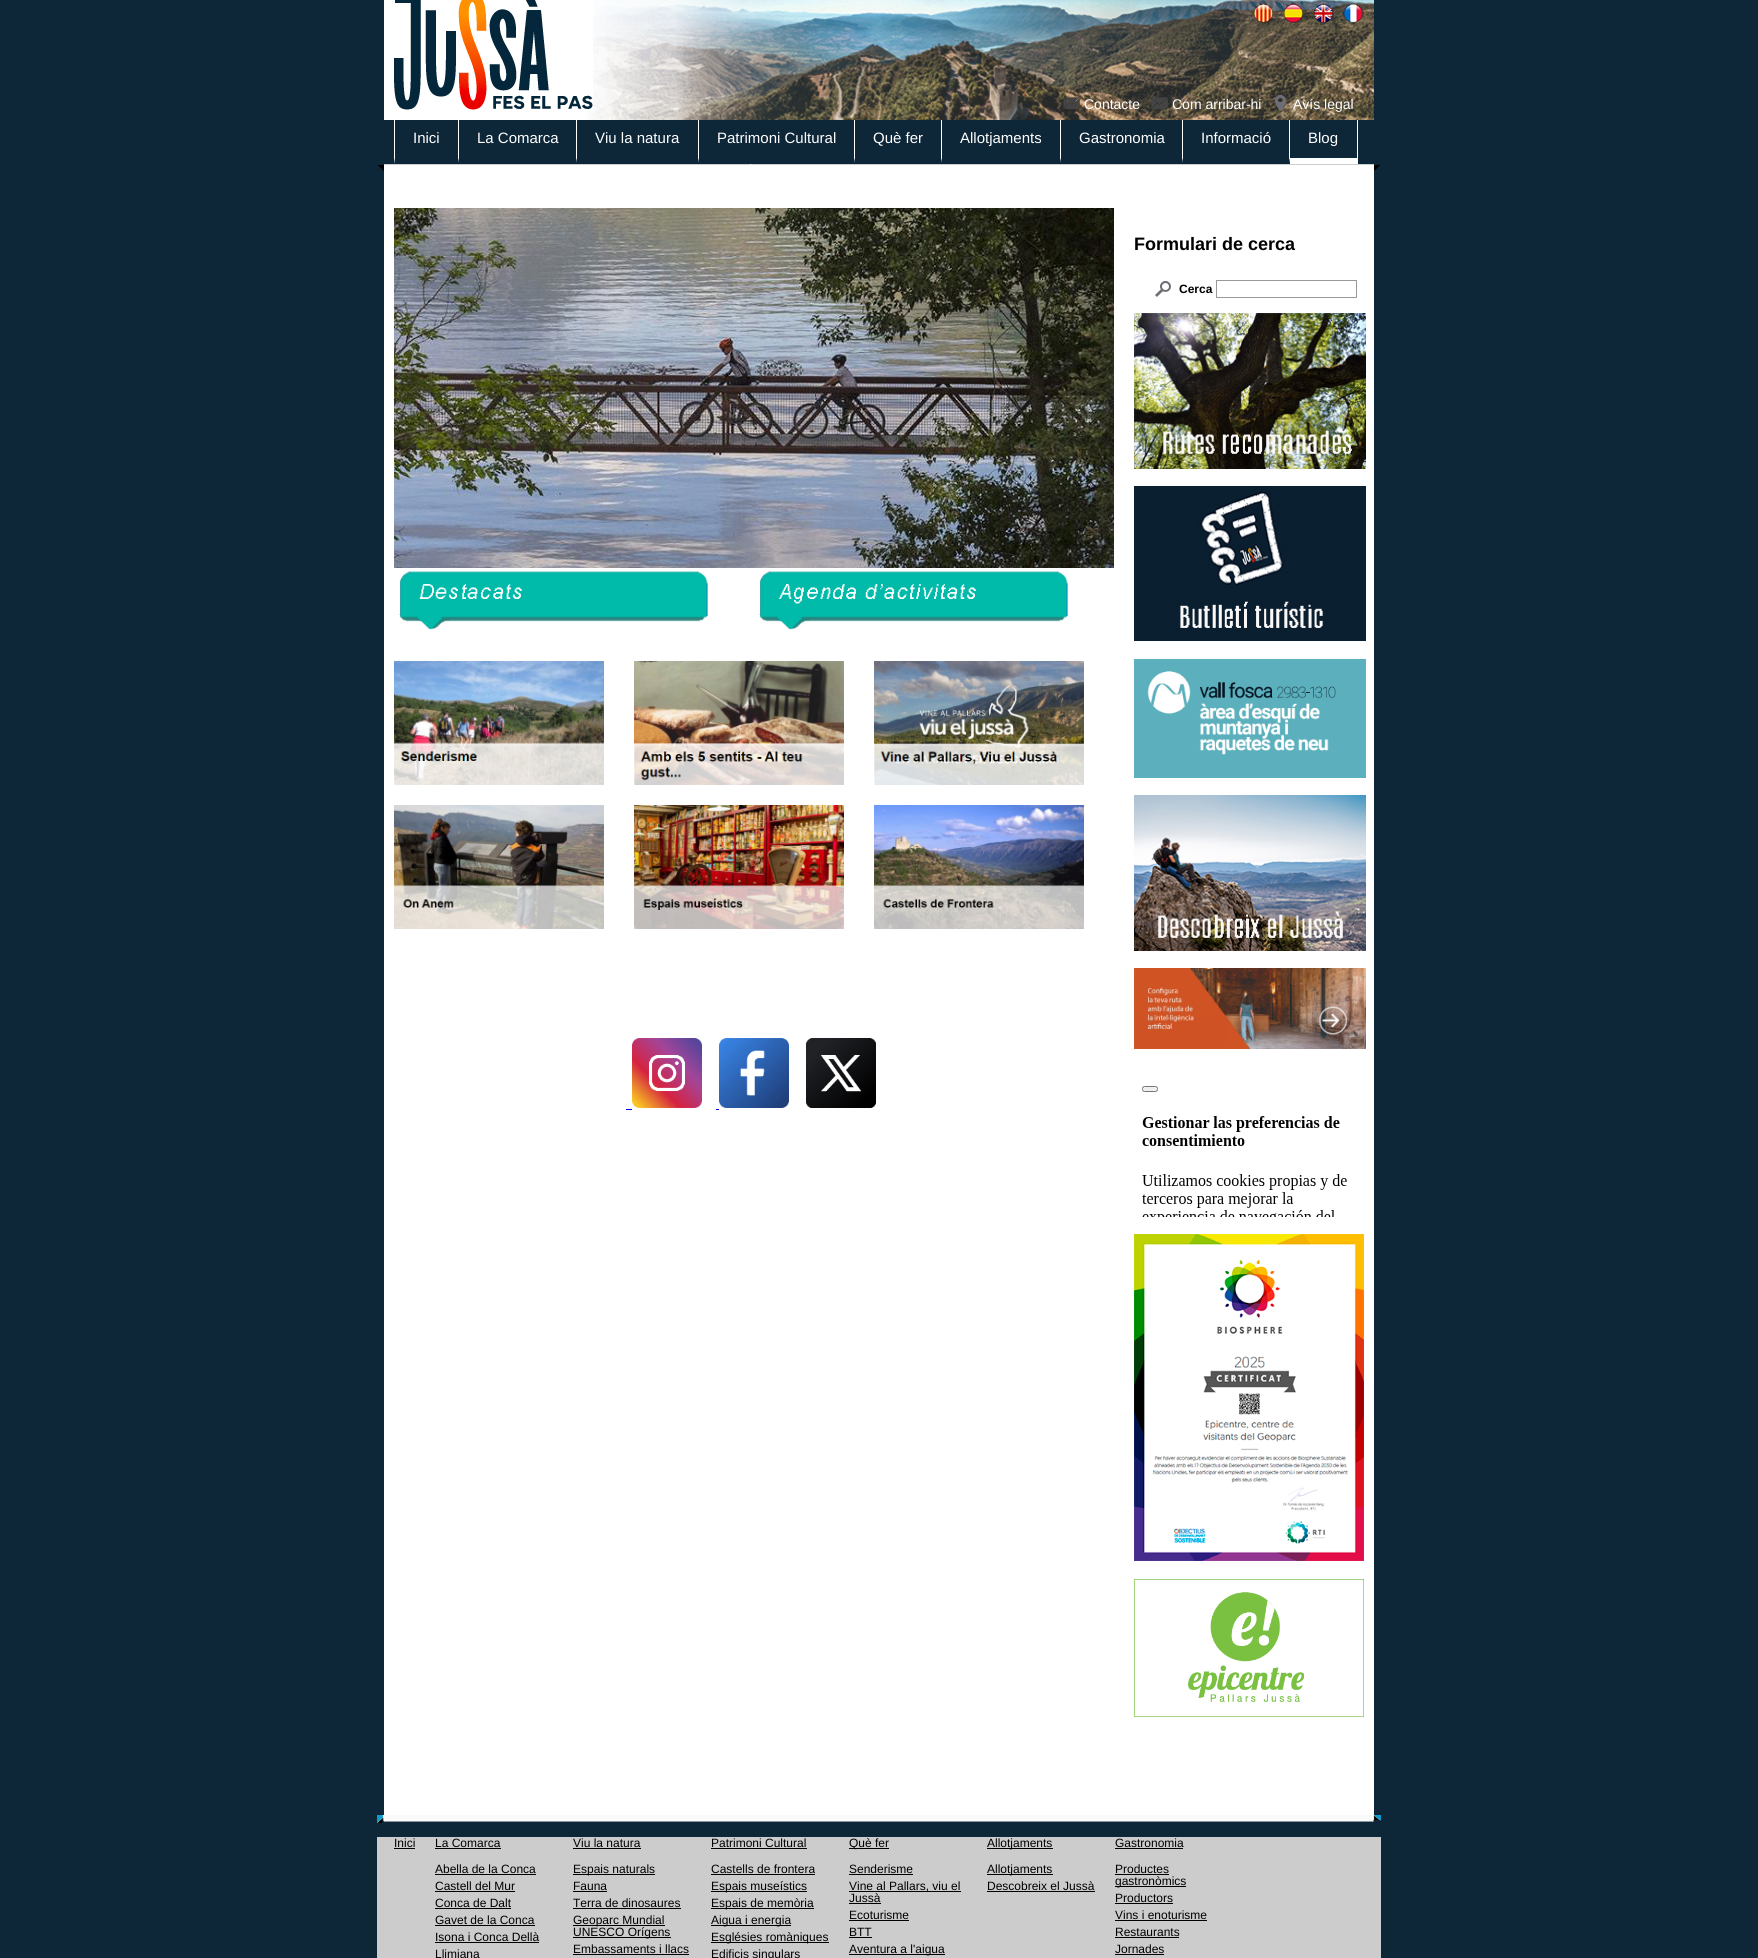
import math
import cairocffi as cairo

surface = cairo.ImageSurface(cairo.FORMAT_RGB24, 1758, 1958)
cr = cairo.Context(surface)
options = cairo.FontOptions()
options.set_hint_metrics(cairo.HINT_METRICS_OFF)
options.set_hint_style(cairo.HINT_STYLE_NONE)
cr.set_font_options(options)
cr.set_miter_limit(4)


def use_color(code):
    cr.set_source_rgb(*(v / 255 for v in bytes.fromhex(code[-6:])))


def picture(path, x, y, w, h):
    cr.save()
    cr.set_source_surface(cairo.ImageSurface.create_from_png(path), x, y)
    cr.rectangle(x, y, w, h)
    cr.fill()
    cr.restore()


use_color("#0d2638")
cr.paint()
use_color("#ffffff")
cr.rectangle(384, 0, 203, 120)
cr.fill()
picture("img1.png", 587, 0, 787, 120)
picture("img2.png", 394, 0, 199, 110)
picture("img3.png", 1253, 3, 21, 20)
picture("img4.png", 1283, 3, 21, 20)
picture("img5.png", 1313, 3, 21, 20)
picture("img6.png", 1342, 3, 22, 20)
picture("img7.png", 1063, 97, 17, 12)
cr.select_font_face("Liberation Sans")
cr.set_font_size(14)
cr.move_to(1084, 109)
cr.show_text("Contacte")
picture("img8.png", 1151, 97, 17, 12)
cr.move_to(1172, 109)
cr.show_text("Com arribar-hi")
picture("img9.png", 1275, 95, 11, 16)
cr.move_to(1293, 109)
cr.show_text("Avís legal")
picture("img10.png", 378, 164, 1002, 7)
cr.new_path()
cr.move_to(459, 120)
cr.line_to(459, 164)
cr.line_to(458, 158)
cr.line_to(458, 120)
cr.close_path()
cr.fill()
use_color("#0d2638")
cr.new_path()
cr.move_to(459, 164)
cr.line_to(394, 164)
cr.line_to(395, 158)
cr.line_to(458, 158)
cr.close_path()
cr.fill()
use_color("#ffffff")
cr.new_path()
cr.move_to(394, 164)
cr.line_to(394, 120)
cr.line_to(395, 120)
cr.line_to(395, 158)
cr.close_path()
cr.fill()
cr.set_font_size(15)
cr.move_to(413, 143)
cr.show_text("Inici")
cr.new_path()
cr.move_to(577, 120)
cr.line_to(577, 164)
cr.line_to(576, 158)
cr.line_to(576, 120)
cr.close_path()
cr.fill()
use_color("#0d2638")
cr.new_path()
cr.move_to(577, 164)
cr.line_to(459, 164)
cr.line_to(459, 158)
cr.line_to(576, 158)
cr.close_path()
cr.fill()
use_color("#ffffff")
cr.move_to(477, 143)
cr.show_text("La Comarca")
cr.new_path()
cr.move_to(699, 120)
cr.line_to(699, 164)
cr.line_to(698, 158)
cr.line_to(698, 120)
cr.close_path()
cr.fill()
use_color("#0d2638")
cr.new_path()
cr.move_to(699, 164)
cr.line_to(577, 164)
cr.line_to(577, 158)
cr.line_to(698, 158)
cr.close_path()
cr.fill()
use_color("#ffffff")
cr.move_to(595, 143)
cr.show_text("Viu la natura")
cr.new_path()
cr.move_to(855, 120)
cr.line_to(855, 164)
cr.line_to(854, 158)
cr.line_to(854, 120)
cr.close_path()
cr.fill()
use_color("#0d2638")
cr.new_path()
cr.move_to(855, 164)
cr.line_to(699, 164)
cr.line_to(699, 158)
cr.line_to(854, 158)
cr.close_path()
cr.fill()
use_color("#ffffff")
cr.move_to(717, 143)
cr.show_text("Patrimoni Cultural")
cr.new_path()
cr.move_to(942, 120)
cr.line_to(942, 164)
cr.line_to(941, 158)
cr.line_to(941, 120)
cr.close_path()
cr.fill()
use_color("#0d2638")
cr.new_path()
cr.move_to(942, 164)
cr.line_to(855, 164)
cr.line_to(855, 158)
cr.line_to(941, 158)
cr.close_path()
cr.fill()
use_color("#ffffff")
cr.move_to(873, 143)
cr.show_text("Què fer")
cr.new_path()
cr.move_to(1061, 120)
cr.line_to(1061, 164)
cr.line_to(1060, 158)
cr.line_to(1060, 120)
cr.close_path()
cr.fill()
use_color("#0d2638")
cr.new_path()
cr.move_to(1061, 164)
cr.line_to(942, 164)
cr.line_to(942, 158)
cr.line_to(1060, 158)
cr.close_path()
cr.fill()
use_color("#ffffff")
cr.move_to(960, 143)
cr.show_text("Allotjaments")
cr.new_path()
cr.move_to(1183, 120)
cr.line_to(1183, 164)
cr.line_to(1182, 158)
cr.line_to(1182, 120)
cr.close_path()
cr.fill()
use_color("#0d2638")
cr.new_path()
cr.move_to(1183, 164)
cr.line_to(1061, 164)
cr.line_to(1061, 158)
cr.line_to(1182, 158)
cr.close_path()
cr.fill()
use_color("#ffffff")
cr.move_to(1079, 143)
cr.show_text("Gastronomia")
cr.new_path()
cr.move_to(1290, 120)
cr.line_to(1290, 164)
cr.line_to(1289, 158)
cr.line_to(1289, 120)
cr.close_path()
cr.fill()
use_color("#0d2638")
cr.new_path()
cr.move_to(1290, 164)
cr.line_to(1183, 164)
cr.line_to(1183, 158)
cr.line_to(1289, 158)
cr.close_path()
cr.fill()
use_color("#ffffff")
cr.move_to(1201, 143)
cr.show_text("Informació")
cr.rectangle(1357, 120, 1, 44)
cr.fill()
cr.rectangle(1290, 158, 68, 6)
cr.fill()
cr.move_to(1308, 143)
cr.show_text("Blog")
cr.rectangle(750, 164, 1, 7)
cr.fill()
cr.rectangle(384, 171, 990, 1644)
cr.fill()
picture("img11.png", 394, 208, 720, 360)
picture("img12.png", 399, 571, 309, 59)
picture("img13.png", 759, 571, 309, 59)
picture("img14.png", 394, 661, 210, 124)
picture("img15.png", 634, 661, 210, 124)
picture("img16.png", 874, 661, 210, 124)
picture("img17.png", 394, 805, 210, 124)
picture("img18.png", 634, 805, 210, 124)
picture("img19.png", 874, 805, 210, 124)
picture("img20.png", 632, 1038, 70, 70)
picture("img21.png", 719, 1038, 70, 70)
picture("img22.png", 806, 1038, 70, 70)
use_color("#0000ee")
cr.rectangle(626, 1109, 6, 1)
cr.fill()
cr.rectangle(716, 1109, 3, 1)
cr.fill()
cr.select_font_face("Liberation Sans", cairo.FONT_SLANT_NORMAL, cairo.FONT_WEIGHT_BOLD)
cr.set_font_size(18)
use_color("#000000")
cr.move_to(1134, 250)
cr.show_text("Formulari de cerca")
picture("img23.png", 1155, 281, 16, 16)
cr.set_font_size(12)
cr.move_to(1179, 293)
cr.show_text("Cerca")
cr.rectangle(1216.5, 280.5, 140, 17)
use_color("#999999")
cr.set_line_width(1)
cr.stroke()
picture("img24.png", 1134, 313, 232, 156)
picture("img25.png", 1134, 486, 232, 155)
picture("img26.png", 1134, 659, 232, 119)
picture("img27.png", 1134, 795, 232, 156)
picture("img28.png", 1134, 968, 232, 81)
picture("img29.png", 1142, 1086, 205, 131)
picture("img30.png", 1134, 1234, 230, 327)
picture("img31.png", 1134, 1579, 230, 138)
use_color("#cccccc")
cr.rectangle(377, 1815, 1004, 143)
cr.fill()
picture("img32.png", 377, 1815, 1004, 22)
cr.select_font_face("Liberation Sans")
use_color("#000000")
cr.move_to(394, 1847)
cr.show_text("Inici")
cr.rectangle(394, 1848, 21, 1)
cr.fill()
cr.move_to(435, 1847)
cr.show_text("La Comarca")
cr.rectangle(435, 1848, 66, 1)
cr.fill()
cr.move_to(435, 1873)
cr.show_text("Abella de la Conca")
cr.rectangle(435, 1874, 101, 1)
cr.fill()
cr.move_to(435, 1890)
cr.show_text("Castell del Mur")
cr.rectangle(435, 1891, 80, 1)
cr.fill()
cr.move_to(435, 1907)
cr.show_text("Conca de Dalt")
cr.rectangle(435, 1908, 76, 1)
cr.fill()
cr.move_to(435, 1924)
cr.show_text("Gavet de la Conca")
cr.rectangle(435, 1925, 100, 1)
cr.fill()
cr.move_to(435, 1941)
cr.show_text("Isona i Conca Dellà")
cr.rectangle(435, 1942, 104, 1)
cr.fill()
cr.move_to(435, 1958)
cr.show_text("Llimiana")
cr.move_to(573, 1847)
cr.show_text("Viu la natura")
cr.rectangle(573, 1848, 68, 1)
cr.fill()
cr.rectangle(573, 1874, 82, 1)
cr.fill()
cr.move_to(573, 1873)
cr.show_text("Espais naturals")
cr.move_to(573, 1890)
cr.show_text("Fauna")
cr.rectangle(573, 1891, 34, 1)
cr.fill()
cr.move_to(573, 1907)
cr.show_text("Terra de dinosaures")
cr.rectangle(573, 1908, 108, 1)
cr.fill()
cr.rectangle(573, 1925, 92, 1)
cr.fill()
cr.move_to(573, 1924)
cr.show_text("Geoparc Mundial")
cr.rectangle(573, 1937, 98, 1)
cr.fill()
cr.move_to(573, 1936)
cr.show_text("UNESCO Orígens")
cr.move_to(573, 1953)
cr.show_text("Embassaments i llacs")
cr.rectangle(573, 1954, 116, 1)
cr.fill()
cr.move_to(711, 1847)
cr.show_text("Patrimoni Cultural")
cr.rectangle(711, 1848, 96, 1)
cr.fill()
cr.move_to(711, 1873)
cr.show_text("Castells de frontera")
cr.rectangle(711, 1874, 104, 1)
cr.fill()
cr.rectangle(711, 1891, 96, 1)
cr.fill()
cr.move_to(711, 1890)
cr.show_text("Espais museístics")
cr.rectangle(711, 1908, 103, 1)
cr.fill()
cr.move_to(711, 1907)
cr.show_text("Espais de memòria")
cr.rectangle(711, 1925, 80, 1)
cr.fill()
cr.move_to(711, 1924)
cr.show_text("Aigua i energia")
cr.rectangle(711, 1942, 118, 1)
cr.fill()
cr.move_to(711, 1941)
cr.show_text("Esglésies romàniques")
cr.move_to(711, 1958)
cr.show_text("Edificis singulars")
cr.rectangle(849, 1848, 40, 1)
cr.fill()
cr.move_to(849, 1847)
cr.show_text("Què fer")
cr.move_to(849, 1873)
cr.show_text("Senderisme")
cr.rectangle(849, 1874, 64, 1)
cr.fill()
cr.rectangle(849, 1891, 112, 1)
cr.fill()
cr.move_to(849, 1890)
cr.show_text("Vine al Pallars, viu el")
cr.move_to(849, 1902)
cr.show_text("Jussà")
cr.rectangle(849, 1903, 32, 1)
cr.fill()
cr.move_to(849, 1919)
cr.show_text("Ecoturisme")
cr.rectangle(849, 1920, 60, 1)
cr.fill()
cr.move_to(849, 1936)
cr.show_text("BTT")
cr.rectangle(849, 1937, 23, 1)
cr.fill()
cr.rectangle(849, 1954, 96, 1)
cr.fill()
cr.move_to(849, 1953)
cr.show_text("Aventura a l'aigua")
cr.rectangle(987, 1848, 66, 1)
cr.fill()
cr.move_to(987, 1847)
cr.show_text("Allotjaments")
cr.rectangle(987, 1874, 66, 1)
cr.fill()
cr.move_to(987, 1873)
cr.show_text("Allotjaments")
cr.move_to(987, 1890)
cr.show_text("Descobreix el Jussà")
cr.rectangle(987, 1891, 108, 1)
cr.fill()
cr.move_to(1115, 1847)
cr.show_text("Gastronomia")
cr.rectangle(1115, 1848, 68, 1)
cr.fill()
cr.move_to(1115, 1873)
cr.show_text("Productes")
cr.rectangle(1115, 1874, 54, 1)
cr.fill()
cr.rectangle(1115, 1886, 71, 1)
cr.fill()
cr.move_to(1115, 1885)
cr.show_text("gastronòmics")
cr.move_to(1115, 1902)
cr.show_text("Productors")
cr.rectangle(1115, 1903, 58, 1)
cr.fill()
cr.move_to(1115, 1919)
cr.show_text("Vins i enoturisme")
cr.rectangle(1115, 1920, 92, 1)
cr.fill()
cr.move_to(1115, 1936)
cr.show_text("Restaurants")
cr.rectangle(1115, 1937, 64, 1)
cr.fill()
cr.move_to(1115, 1953)
cr.show_text("Jornades")
cr.rectangle(1115, 1954, 49, 1)
cr.fill()
surface.write_to_png("result.png")
